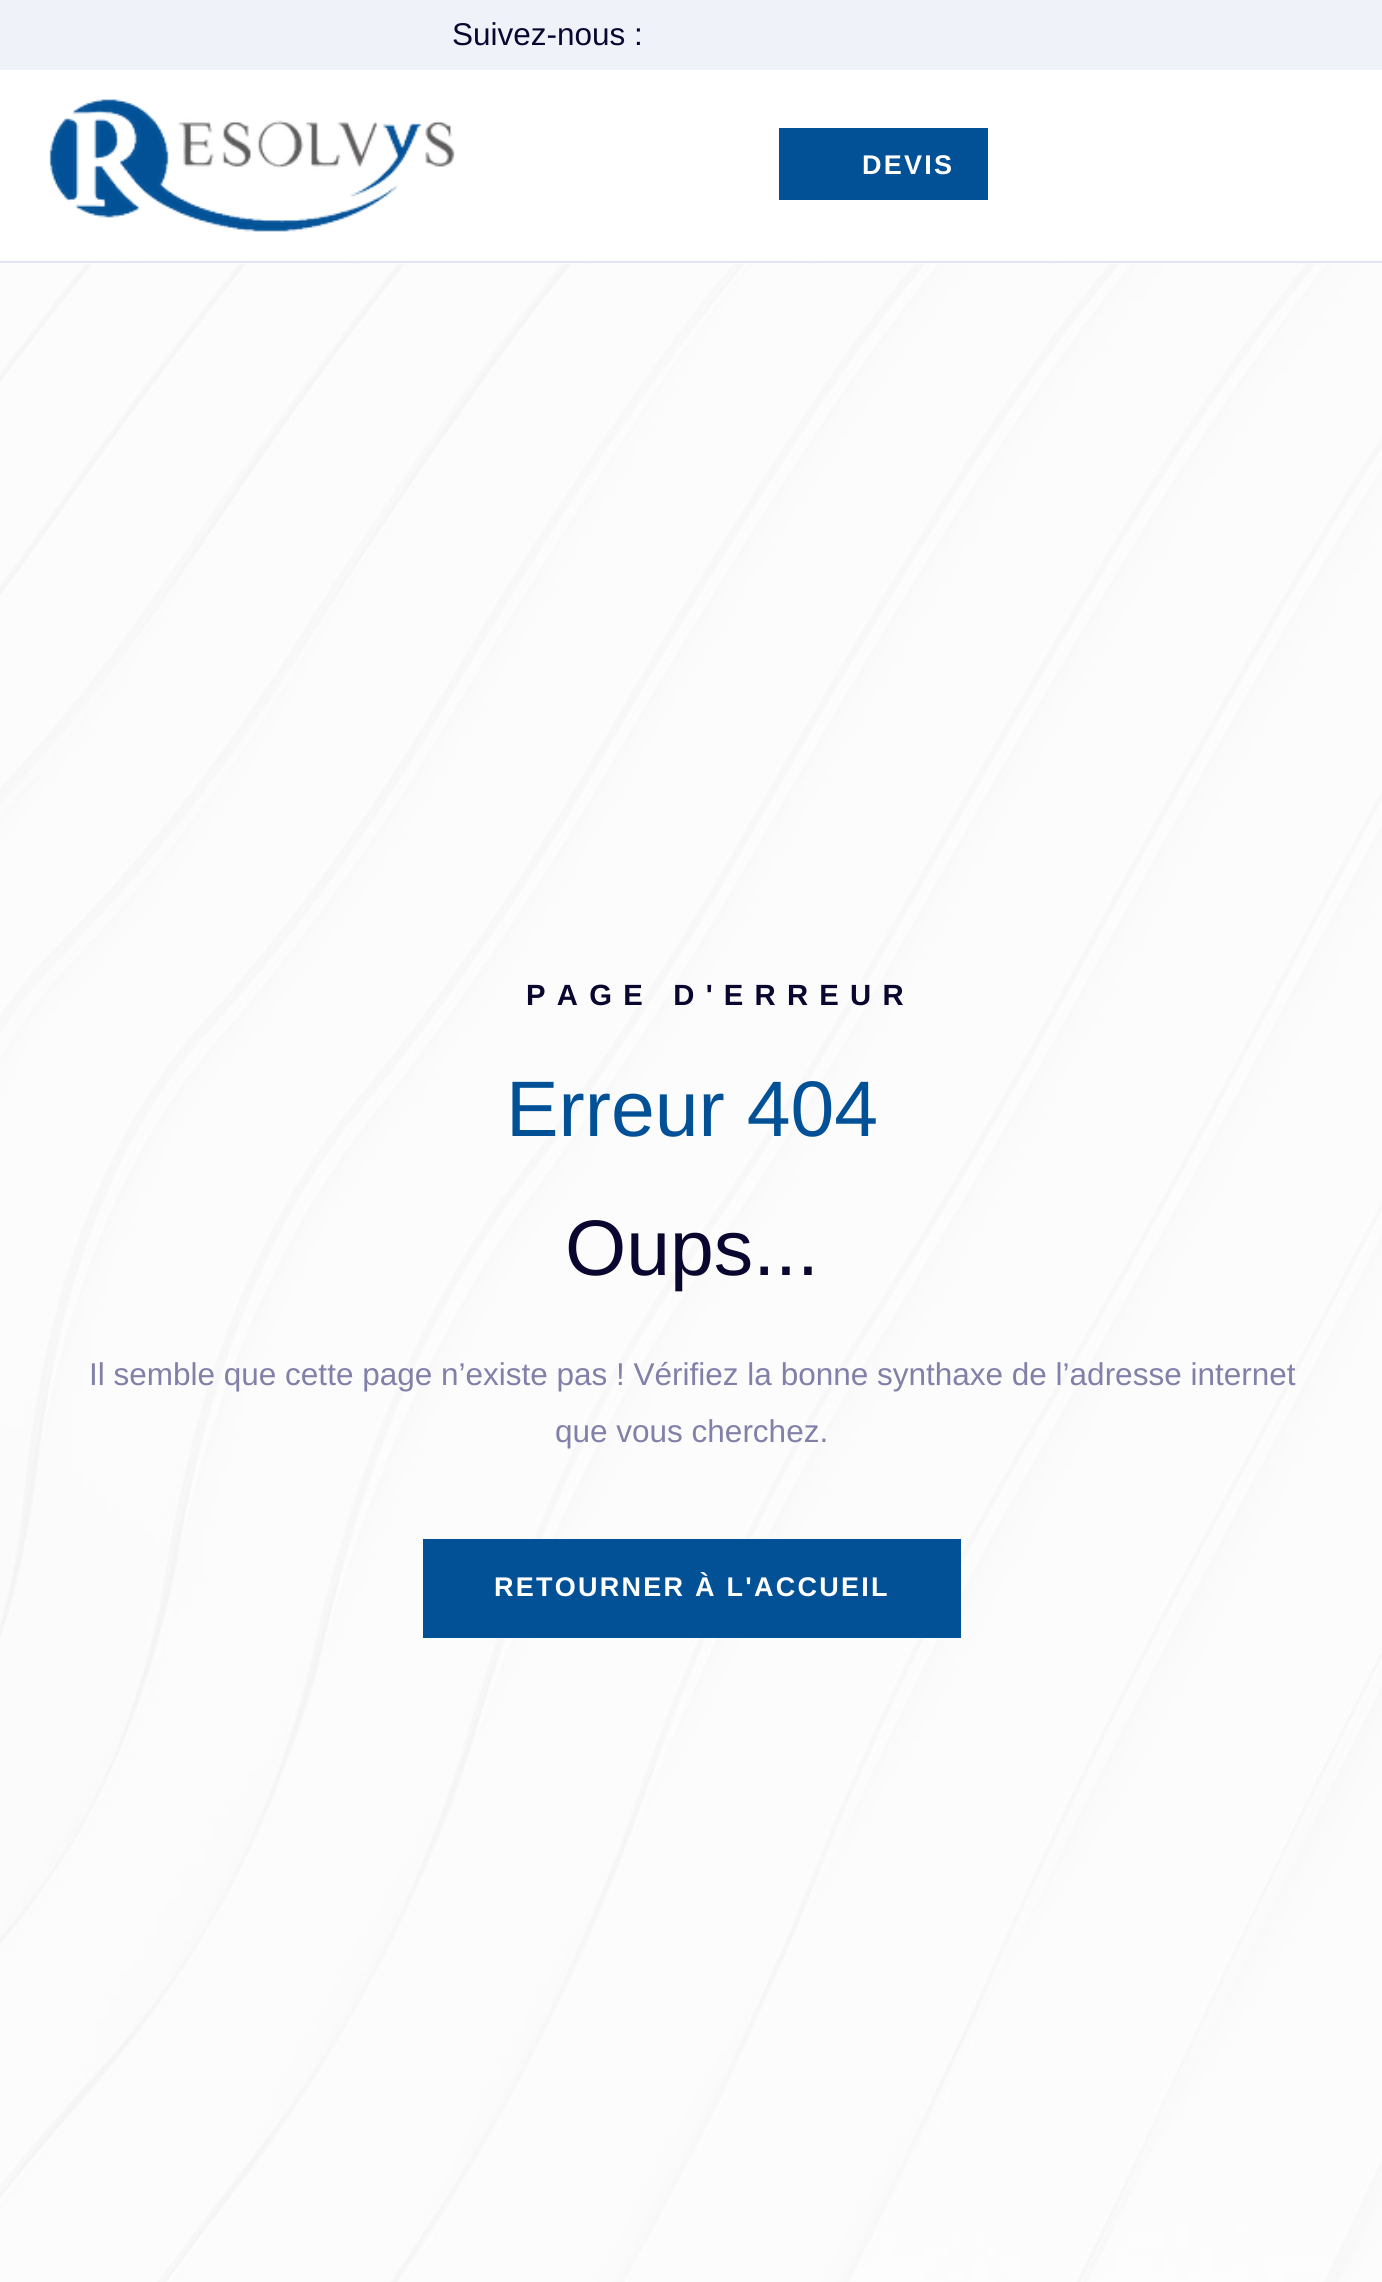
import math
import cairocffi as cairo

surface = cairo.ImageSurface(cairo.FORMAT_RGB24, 1382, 2282)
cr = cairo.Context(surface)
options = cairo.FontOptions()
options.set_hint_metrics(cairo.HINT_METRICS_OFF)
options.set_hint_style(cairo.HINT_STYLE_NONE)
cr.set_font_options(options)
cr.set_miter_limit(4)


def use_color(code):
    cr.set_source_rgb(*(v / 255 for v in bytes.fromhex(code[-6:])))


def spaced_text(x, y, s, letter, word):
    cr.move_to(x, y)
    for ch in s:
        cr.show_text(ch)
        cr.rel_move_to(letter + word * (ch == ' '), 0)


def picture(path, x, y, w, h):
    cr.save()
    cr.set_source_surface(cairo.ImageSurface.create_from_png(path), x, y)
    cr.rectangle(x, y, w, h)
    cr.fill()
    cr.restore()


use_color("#ffffff")
cr.paint()
use_color("#f0f2fa")
cr.rectangle(0, 0, 1382, 70)
cr.fill()
cr.select_font_face("Liberation Sans")
cr.set_font_size(31.5)
use_color("#09072f")
cr.move_to(452, 45)
cr.show_text("Suivez-nous :")
use_color("#e2e5f1")
cr.rectangle(0, 261, 1382, 2)
cr.fill()
picture("img1.png", 49, 99, 406, 133)
use_color("#025197")
cr.rectangle(779, 128, 209, 72)
cr.fill()
cr.select_font_face("Liberation Sans", cairo.FONT_SLANT_NORMAL, cairo.FONT_WEIGHT_BOLD)
cr.set_font_size(27)
use_color("#ffffff")
spaced_text(862, 174, "DEVIS", 2.25, 0)
picture("img2.png", 0, 263, 1382, 2019)
cr.set_font_size(29.25)
use_color("#09072f")
spaced_text(526, 1005, "PAGE D'ERREUR", 11.25, 0)
cr.select_font_face("Liberation Sans")
cr.set_font_size(78.75)
use_color("#025197")
cr.move_to(506, 1136)
cr.show_text("Erreur 404")
use_color("#09072f")
cr.move_to(565, 1275)
cr.show_text("Oups...")
cr.set_font_size(31.5)
use_color("#8180a8")
cr.move_to(89, 1385)
cr.show_text("Il semble que cette page n’existe pas ! Vérifiez la bonne synthaxe de l’adresse internet")
cr.move_to(555, 1442)
cr.show_text("que vous cherchez.")
use_color("#025197")
cr.rectangle(423, 1539, 538, 99)
cr.fill()
cr.select_font_face("Liberation Sans", cairo.FONT_SLANT_NORMAL, cairo.FONT_WEIGHT_BOLD)
cr.set_font_size(27)
use_color("#ffffff")
spaced_text(494, 1596, "RETOURNER À L'ACCUEIL", 2.25, 0)
surface.write_to_png("result.png")
